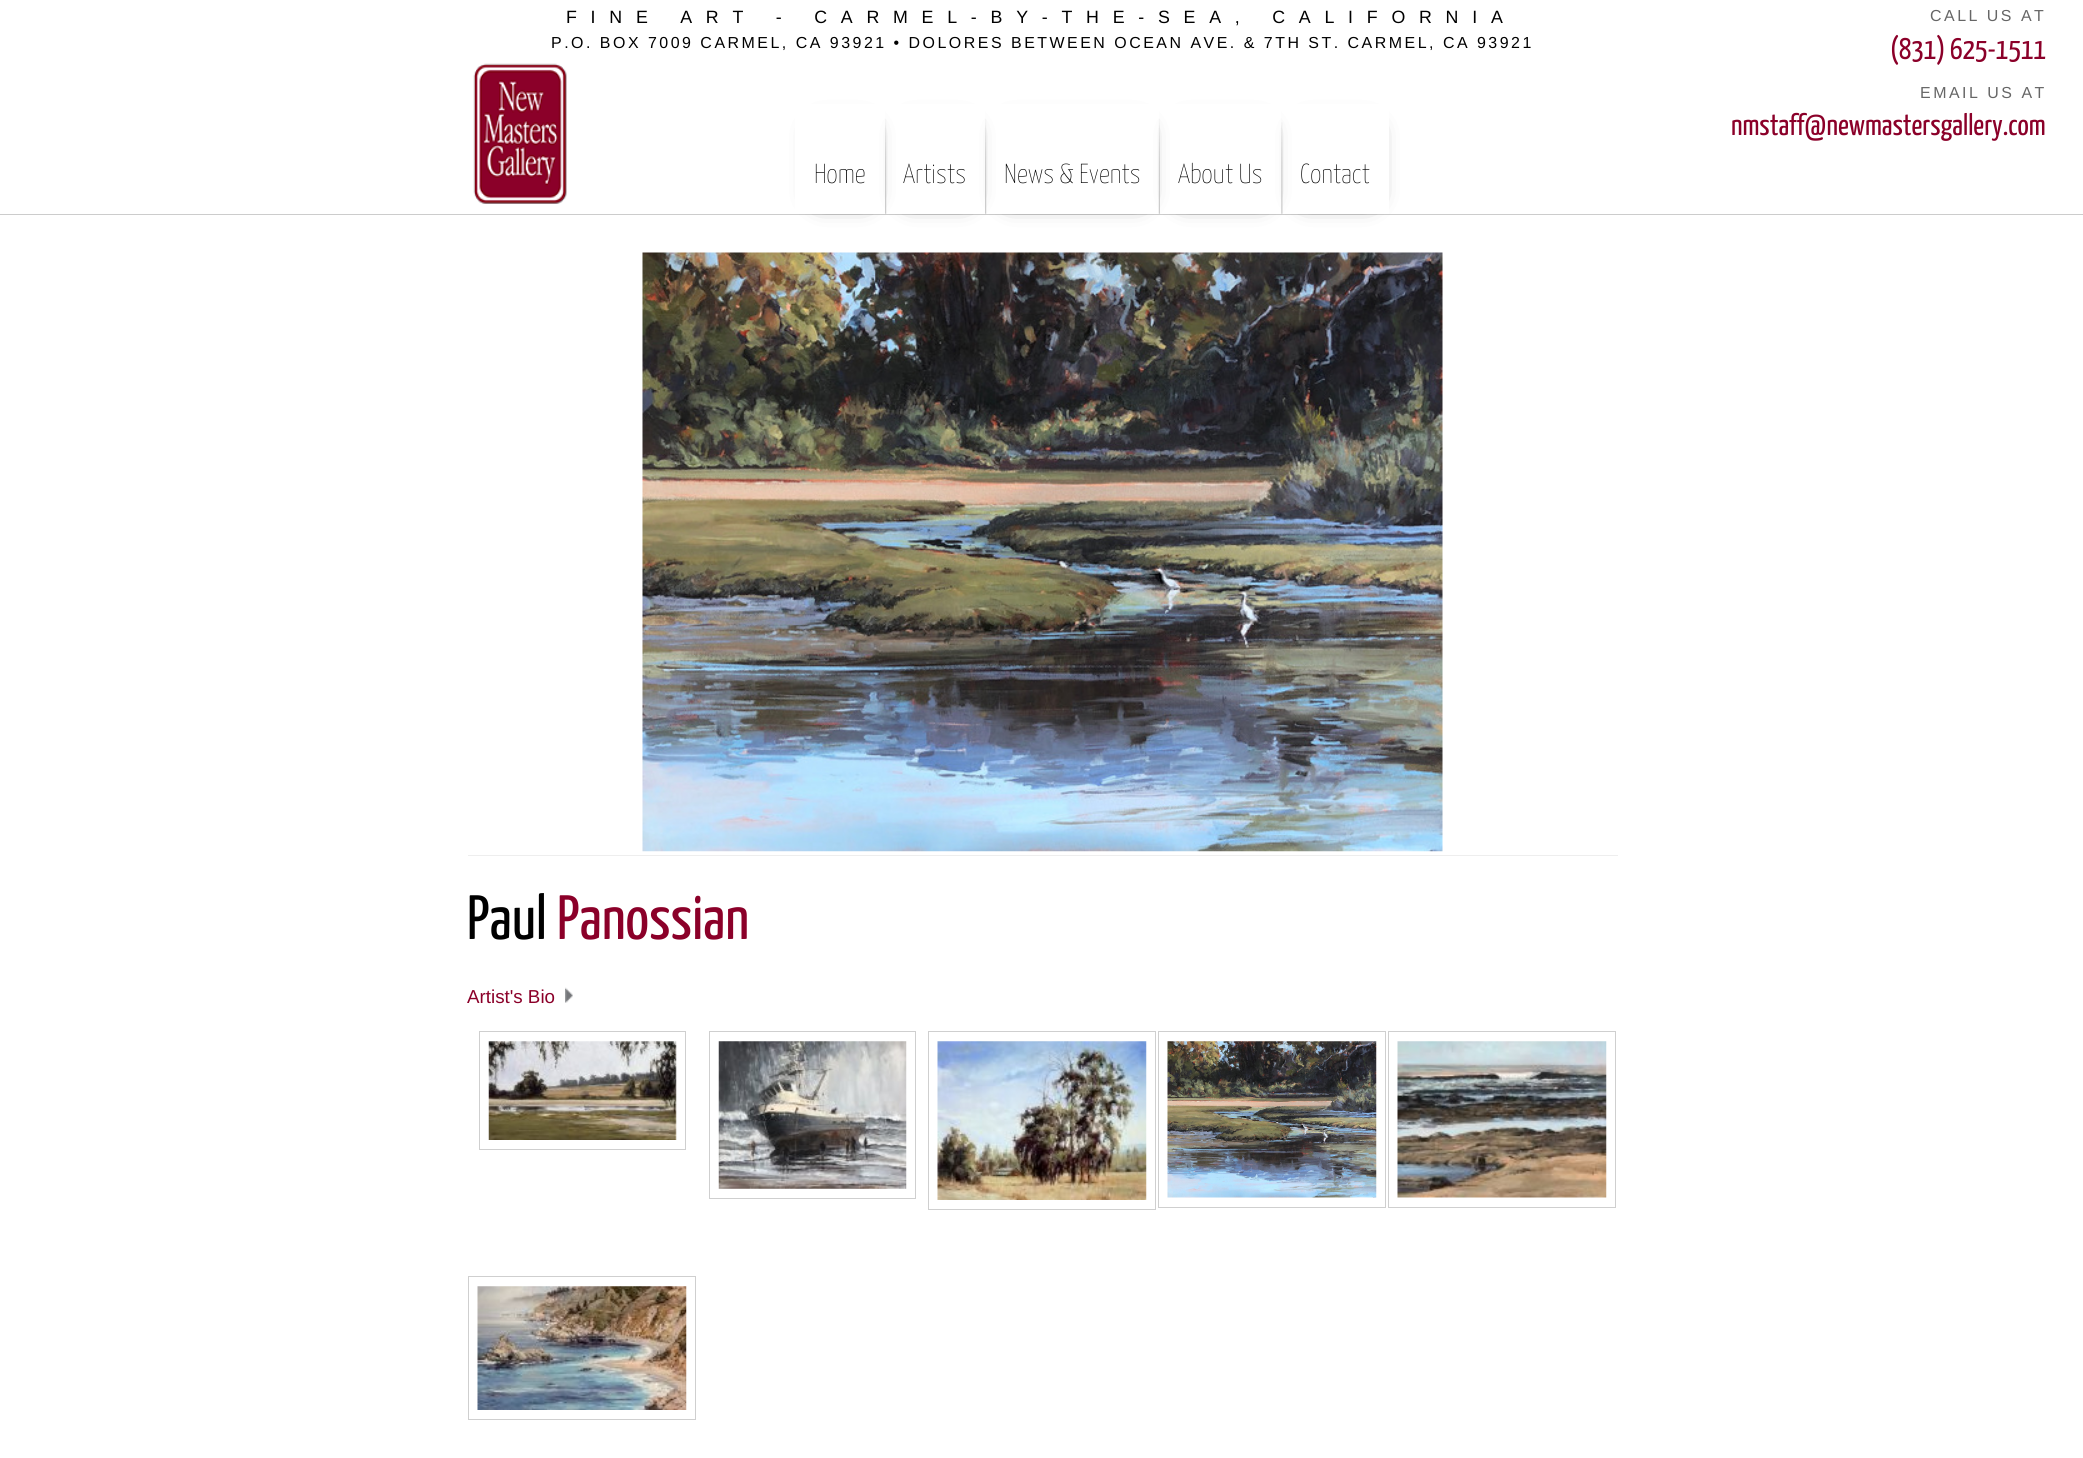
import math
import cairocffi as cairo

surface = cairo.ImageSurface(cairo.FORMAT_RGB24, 2083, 1458)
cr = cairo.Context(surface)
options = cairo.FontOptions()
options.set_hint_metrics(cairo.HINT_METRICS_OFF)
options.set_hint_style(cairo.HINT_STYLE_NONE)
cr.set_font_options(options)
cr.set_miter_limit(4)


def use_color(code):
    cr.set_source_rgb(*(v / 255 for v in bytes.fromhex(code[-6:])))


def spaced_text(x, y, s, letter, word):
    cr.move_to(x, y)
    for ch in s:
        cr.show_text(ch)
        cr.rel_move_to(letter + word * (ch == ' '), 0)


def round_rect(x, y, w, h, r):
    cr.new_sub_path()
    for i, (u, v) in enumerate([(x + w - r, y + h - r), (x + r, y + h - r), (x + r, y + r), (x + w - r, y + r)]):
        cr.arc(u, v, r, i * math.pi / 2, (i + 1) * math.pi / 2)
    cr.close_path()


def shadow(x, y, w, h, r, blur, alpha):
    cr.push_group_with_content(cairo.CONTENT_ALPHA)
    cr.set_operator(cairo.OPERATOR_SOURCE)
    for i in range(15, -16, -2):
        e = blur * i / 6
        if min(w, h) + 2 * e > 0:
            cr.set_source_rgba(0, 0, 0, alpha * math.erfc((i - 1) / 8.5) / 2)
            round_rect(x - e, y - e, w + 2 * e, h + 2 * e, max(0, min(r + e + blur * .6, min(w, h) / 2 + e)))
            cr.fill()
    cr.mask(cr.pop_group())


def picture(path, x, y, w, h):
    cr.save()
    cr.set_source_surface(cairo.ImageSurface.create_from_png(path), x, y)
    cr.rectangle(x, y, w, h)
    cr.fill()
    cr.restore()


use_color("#ffffff")
cr.paint()
cr.select_font_face("Liberation Sans")
cr.set_font_size(17.8)
use_color("#000000")
spaced_text(566, 23, "FINE ART - CARMEL-BY-THE-SEA, CALIFORNIA", 13.75, 0)
cr.set_font_size(15.95)
spaced_text(551, 48, "P.O. BOX 7009 CARMEL, CA 93921 • DOLORES BETWEEN OCEAN AVE. & 7TH ST. CARMEL, CA 93921", 2.5, 0)
picture("img1.png", 473, 63, 94, 141)
use_color("#cccccc")
cr.rectangle(0, 214, 2083, 1)
cr.fill()
cr.save()
cr.set_fill_rule(cairo.FILL_RULE_EVEN_ODD)
cr.new_path()
cr.move_to(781, 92)
cr.line_to(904, 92)
cr.line_to(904, 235)
cr.line_to(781, 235)
cr.close_path()
cr.move_to(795, 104)
cr.line_to(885, 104)
cr.line_to(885, 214)
cr.line_to(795, 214)
cr.close_path()
cr.clip()
use_color("#000000")
shadow(820, 131, 45, 65, 0, 12.5, 1)
cr.restore()
cr.select_font_face("Yanone Kaffeesatz ExtraLight")
cr.set_font_size(27.5)
use_color("#000000")
cr.move_to(814, 183)
cr.show_text("Home")
cr.save()
cr.set_fill_rule(cairo.FILL_RULE_EVEN_ODD)
cr.new_path()
cr.move_to(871, 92)
cr.line_to(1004, 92)
cr.line_to(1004, 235)
cr.line_to(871, 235)
cr.close_path()
cr.move_to(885, 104)
cr.line_to(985, 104)
cr.line_to(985, 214)
cr.line_to(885, 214)
cr.close_path()
cr.clip()
use_color("#000000")
shadow(910, 131, 55, 65, 0, 12.5, 1)
cr.restore()
picture("img2.png", 885, 119, 2, 95)
cr.move_to(903, 183)
cr.show_text("Artists")
cr.save()
cr.set_fill_rule(cairo.FILL_RULE_EVEN_ODD)
cr.new_path()
cr.move_to(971, 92)
cr.line_to(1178, 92)
cr.line_to(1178, 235)
cr.line_to(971, 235)
cr.close_path()
cr.move_to(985, 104)
cr.line_to(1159, 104)
cr.line_to(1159, 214)
cr.line_to(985, 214)
cr.close_path()
cr.clip()
use_color("#000000")
shadow(1010, 131, 129, 65, 0, 12.5, 1)
cr.restore()
picture("img2.png", 985, 119, 2, 95)
cr.move_to(1004, 183)
cr.show_text("News & Events")
cr.save()
cr.set_fill_rule(cairo.FILL_RULE_EVEN_ODD)
cr.new_path()
cr.move_to(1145, 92)
cr.line_to(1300, 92)
cr.line_to(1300, 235)
cr.line_to(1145, 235)
cr.close_path()
cr.move_to(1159, 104)
cr.line_to(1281, 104)
cr.line_to(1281, 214)
cr.line_to(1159, 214)
cr.close_path()
cr.clip()
use_color("#000000")
shadow(1184, 131, 77, 65, 0, 12.5, 1)
cr.restore()
picture("img3.png", 1158, 119, 2, 95)
cr.move_to(1178, 183)
cr.show_text("About Us")
cr.save()
cr.set_fill_rule(cairo.FILL_RULE_EVEN_ODD)
cr.new_path()
cr.move_to(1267, 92)
cr.line_to(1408, 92)
cr.line_to(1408, 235)
cr.line_to(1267, 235)
cr.close_path()
cr.move_to(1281, 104)
cr.line_to(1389, 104)
cr.line_to(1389, 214)
cr.line_to(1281, 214)
cr.close_path()
cr.clip()
use_color("#000000")
shadow(1306, 131, 63, 65, 0, 12.5, 1)
cr.restore()
picture("img4.png", 1281, 122, 2, 92)
cr.move_to(1300, 183)
cr.show_text("Contact")
cr.select_font_face("Liberation Sans")
cr.set_font_size(15.95)
use_color("#666666")
spaced_text(1930, 21, "CALL US AT", 2.5, 0)
cr.select_font_face("Yanone Kaffeesatz")
cr.set_font_size(30)
use_color("#8b0029")
cr.move_to(1890, 59)
cr.show_text("(831) 625-1511")
cr.select_font_face("Liberation Sans")
cr.set_font_size(15.95)
use_color("#666666")
spaced_text(1920, 98, "EMAIL US AT", 2.5, 0)
cr.select_font_face("Yanone Kaffeesatz")
cr.set_font_size(30)
use_color("#8b0029")
cr.move_to(1731, 135)
cr.show_text("nmstaff@newmastersgallery.com")
picture("img5.png", 642, 252, 801, 600)
use_color("#eeeeee")
cr.rectangle(468, 855, 1150, 1)
cr.fill()
cr.set_font_size(62.5)
use_color("#000000")
cr.move_to(467, 939)
cr.show_text("Paul")
use_color("#8b0029")
cr.move_to(557, 939)
cr.show_text("Panossian")
cr.select_font_face("Liberation Sans")
cr.set_font_size(18.75)
cr.move_to(467, 1003)
cr.show_text("Artist's Bio")
picture("img6.png", 565, 987, 8, 16)
cr.rectangle(479.5, 1031.5, 206, 118)
use_color("#cfcfcf")
cr.set_line_width(1)
cr.stroke()
picture("img7.png", 488, 1041, 189, 99)
cr.rectangle(709.5, 1031.5, 206, 167)
cr.stroke()
picture("img8.png", 718, 1041, 189, 148)
cr.rectangle(928.5, 1031.5, 227, 178)
cr.stroke()
picture("img9.png", 937, 1041, 210, 159)
cr.rectangle(1158.5, 1031.5, 227, 176)
cr.stroke()
picture("img10.png", 1167, 1041, 210, 157)
cr.rectangle(1388.5, 1031.5, 227, 176)
cr.stroke()
picture("img11.png", 1397, 1041, 210, 157)
cr.rectangle(468.5, 1276.5, 227, 143)
cr.stroke()
picture("img12.png", 477, 1286, 210, 124)
surface.write_to_png("result.png")
